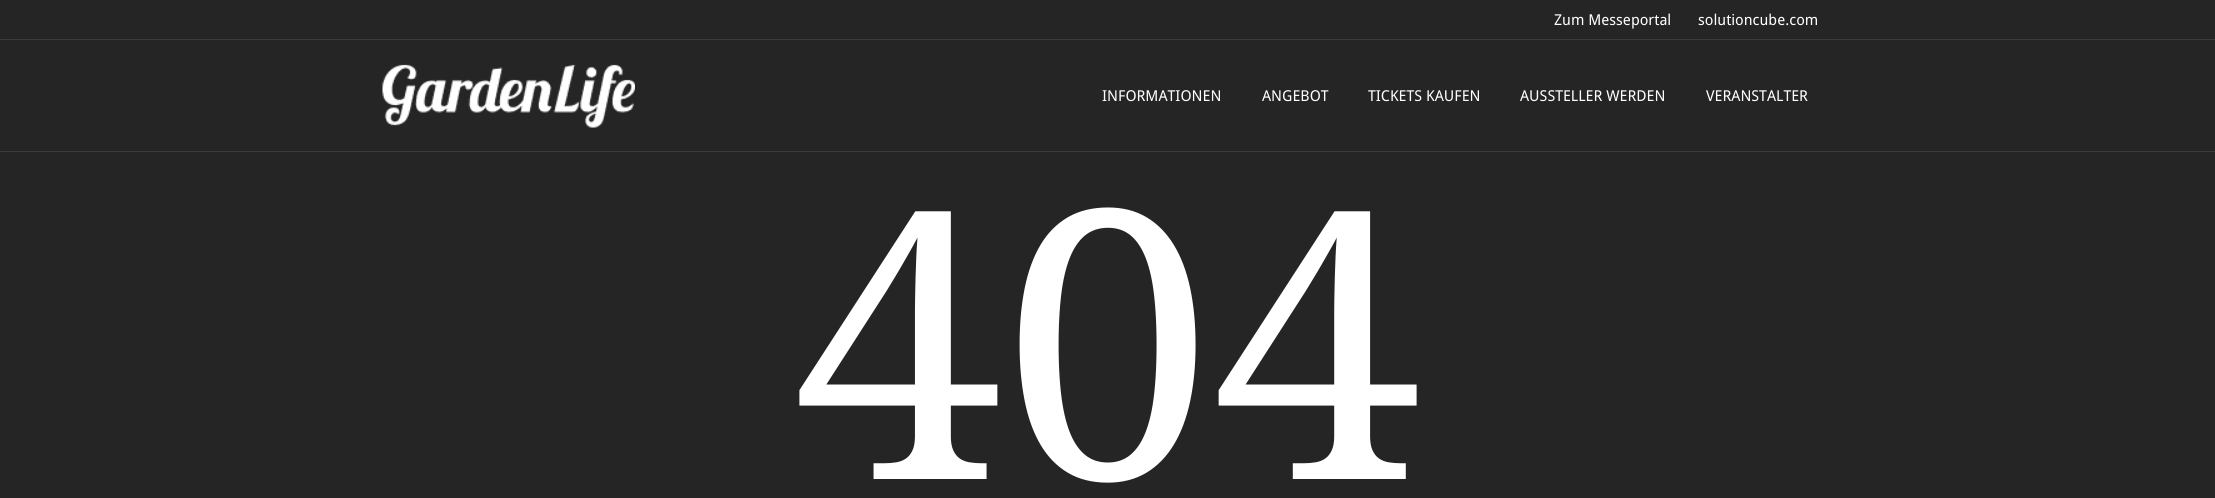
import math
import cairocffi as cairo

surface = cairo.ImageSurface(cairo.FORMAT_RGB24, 2215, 498)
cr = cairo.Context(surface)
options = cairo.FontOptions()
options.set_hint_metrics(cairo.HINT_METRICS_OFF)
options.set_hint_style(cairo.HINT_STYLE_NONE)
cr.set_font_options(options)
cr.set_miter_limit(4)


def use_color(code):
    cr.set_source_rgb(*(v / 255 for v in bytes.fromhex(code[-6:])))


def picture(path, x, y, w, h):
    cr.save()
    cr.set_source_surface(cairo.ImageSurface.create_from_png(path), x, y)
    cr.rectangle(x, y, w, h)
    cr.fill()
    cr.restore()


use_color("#252525")
cr.paint()
use_color("#3b3b3b")
cr.rectangle(0, 39, 2215, 1)
cr.fill()
cr.select_font_face("Droid Sans")
cr.set_font_size(15)
use_color("#ffffff")
cr.move_to(1554, 25)
cr.show_text("Zum Messeportal")
cr.move_to(1698, 25)
cr.show_text("solutioncube.com")
use_color("#3b3b3b")
cr.rectangle(0, 151, 2215, 1)
cr.fill()
picture("img1.png", 382, 64, 253, 64)
use_color("#ffffff")
cr.move_to(1102, 101)
cr.show_text("INFORMATIONEN")
cr.move_to(1262, 101)
cr.show_text("ANGEBOT")
cr.move_to(1368, 101)
cr.show_text("TICKETS KAUFEN")
cr.move_to(1520, 101)
cr.show_text("AUSSTELLER WERDEN")
cr.move_to(1706, 101)
cr.show_text("VERANSTALTER")
cr.select_font_face("Droid Serif")
cr.set_font_size(375)
cr.move_to(793, 479)
cr.show_text("404")
surface.write_to_png("result.png")
